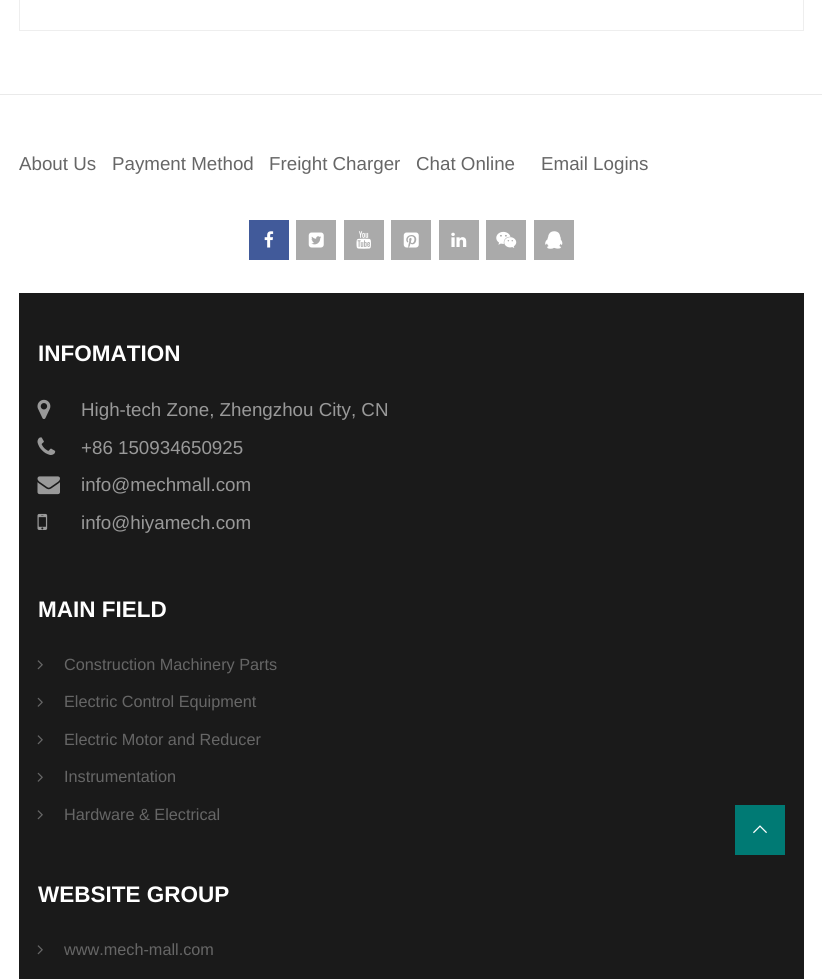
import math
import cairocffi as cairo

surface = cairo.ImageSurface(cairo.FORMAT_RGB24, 822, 979)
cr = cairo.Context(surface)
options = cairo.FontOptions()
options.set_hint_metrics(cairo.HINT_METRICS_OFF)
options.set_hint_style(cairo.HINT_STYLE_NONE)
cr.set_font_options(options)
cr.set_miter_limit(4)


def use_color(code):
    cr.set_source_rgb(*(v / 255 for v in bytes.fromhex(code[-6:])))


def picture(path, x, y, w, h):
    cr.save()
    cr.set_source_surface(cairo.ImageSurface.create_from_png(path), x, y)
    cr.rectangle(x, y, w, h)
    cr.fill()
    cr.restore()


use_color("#ffffff")
cr.paint()
cr.rectangle(19.5, -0.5, 784, 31)
use_color("#eeeeee")
cr.set_line_width(1)
cr.stroke()
use_color("#eaeaea")
cr.rectangle(0, 94, 822, 1)
cr.fill()
cr.select_font_face("Liberation Sans")
cr.set_font_size(18.75)
use_color("#666666")
cr.move_to(19, 170)
cr.show_text("About Us")
cr.move_to(112, 170)
cr.show_text("Payment Method")
cr.move_to(269, 170)
cr.show_text("Freight Charger")
cr.move_to(416, 170)
cr.show_text("Chat Online")
cr.move_to(541, 170)
cr.show_text("Email Logins")
use_color("#415a9a")
cr.rectangle(249, 220, 40, 40)
cr.fill()
picture("img1.png", 264, 231, 10, 17)
use_color("#aaaaaa")
cr.rectangle(296, 220, 40, 40)
cr.fill()
picture("img2.png", 308, 232, 16, 16)
cr.rectangle(344, 220, 40, 40)
cr.fill()
picture("img3.png", 356, 231, 15, 18)
cr.rectangle(391, 220, 40, 40)
cr.fill()
picture("img4.png", 403, 232, 16, 16)
cr.rectangle(439, 220, 40, 40)
cr.fill()
picture("img5.png", 451, 232, 16, 15)
cr.rectangle(486, 220, 40, 40)
cr.fill()
picture("img6.png", 496, 231, 21, 17)
cr.rectangle(534, 220, 40, 40)
cr.fill()
picture("img7.png", 545, 231, 18, 18)
use_color("#1a1a1a")
cr.rectangle(19, 293, 785, 686)
cr.fill()
cr.select_font_face("Liberation Sans", cairo.FONT_SLANT_NORMAL, cairo.FONT_WEIGHT_BOLD)
cr.set_font_size(22.5)
use_color("#ffffff")
cr.move_to(38, 361)
cr.show_text("INFOMATION")
picture("img8.png", 37, 399, 14, 20)
cr.select_font_face("Liberation Sans")
cr.set_font_size(18.75)
use_color("#999999")
cr.move_to(81, 416)
cr.show_text("High-tech Zone, Zhengzhou City, CN")
picture("img9.png", 37, 437, 19, 18)
cr.move_to(81, 454)
cr.show_text("+86 150934650925")
picture("img10.png", 37, 476, 23, 19)
cr.move_to(81, 491)
cr.show_text("info@mechmall.com")
picture("img11.png", 37, 513, 11, 17)
cr.move_to(81, 529)
cr.show_text("info@hiyamech.com")
cr.select_font_face("Liberation Sans", cairo.FONT_SLANT_NORMAL, cairo.FONT_WEIGHT_BOLD)
cr.set_font_size(22.5)
use_color("#ffffff")
cr.move_to(38, 617)
cr.show_text("MAIN FIELD")
picture("img12.png", 37, 660, 6, 10)
cr.select_font_face("Liberation Sans")
cr.set_font_size(16.25)
use_color("#666666")
cr.move_to(64, 670)
cr.show_text("Construction Machinery Parts")
picture("img13.png", 37, 697, 6, 10)
cr.move_to(64, 707)
cr.show_text("Electric Control Equipment")
picture("img12.png", 37, 735, 6, 10)
cr.move_to(64, 745)
cr.show_text("Electric Motor and Reducer")
picture("img13.png", 37, 772, 6, 10)
cr.move_to(64, 782)
cr.show_text("Instrumentation")
picture("img12.png", 37, 810, 6, 10)
cr.move_to(64, 820)
cr.show_text("Hardware & Electrical")
cr.select_font_face("Liberation Sans", cairo.FONT_SLANT_NORMAL, cairo.FONT_WEIGHT_BOLD)
cr.set_font_size(22.5)
use_color("#ffffff")
cr.move_to(38, 902)
cr.show_text("WEBSITE GROUP")
picture("img12.png", 37, 945, 6, 10)
cr.select_font_face("Liberation Sans")
cr.set_font_size(16.25)
use_color("#666666")
cr.move_to(64, 955)
cr.show_text("www.mech-mall.com")
use_color("#007a74")
cr.rectangle(735, 805, 50, 50)
cr.fill()
picture("img14.png", 753, 825, 14, 9)
surface.write_to_png("result.png")
